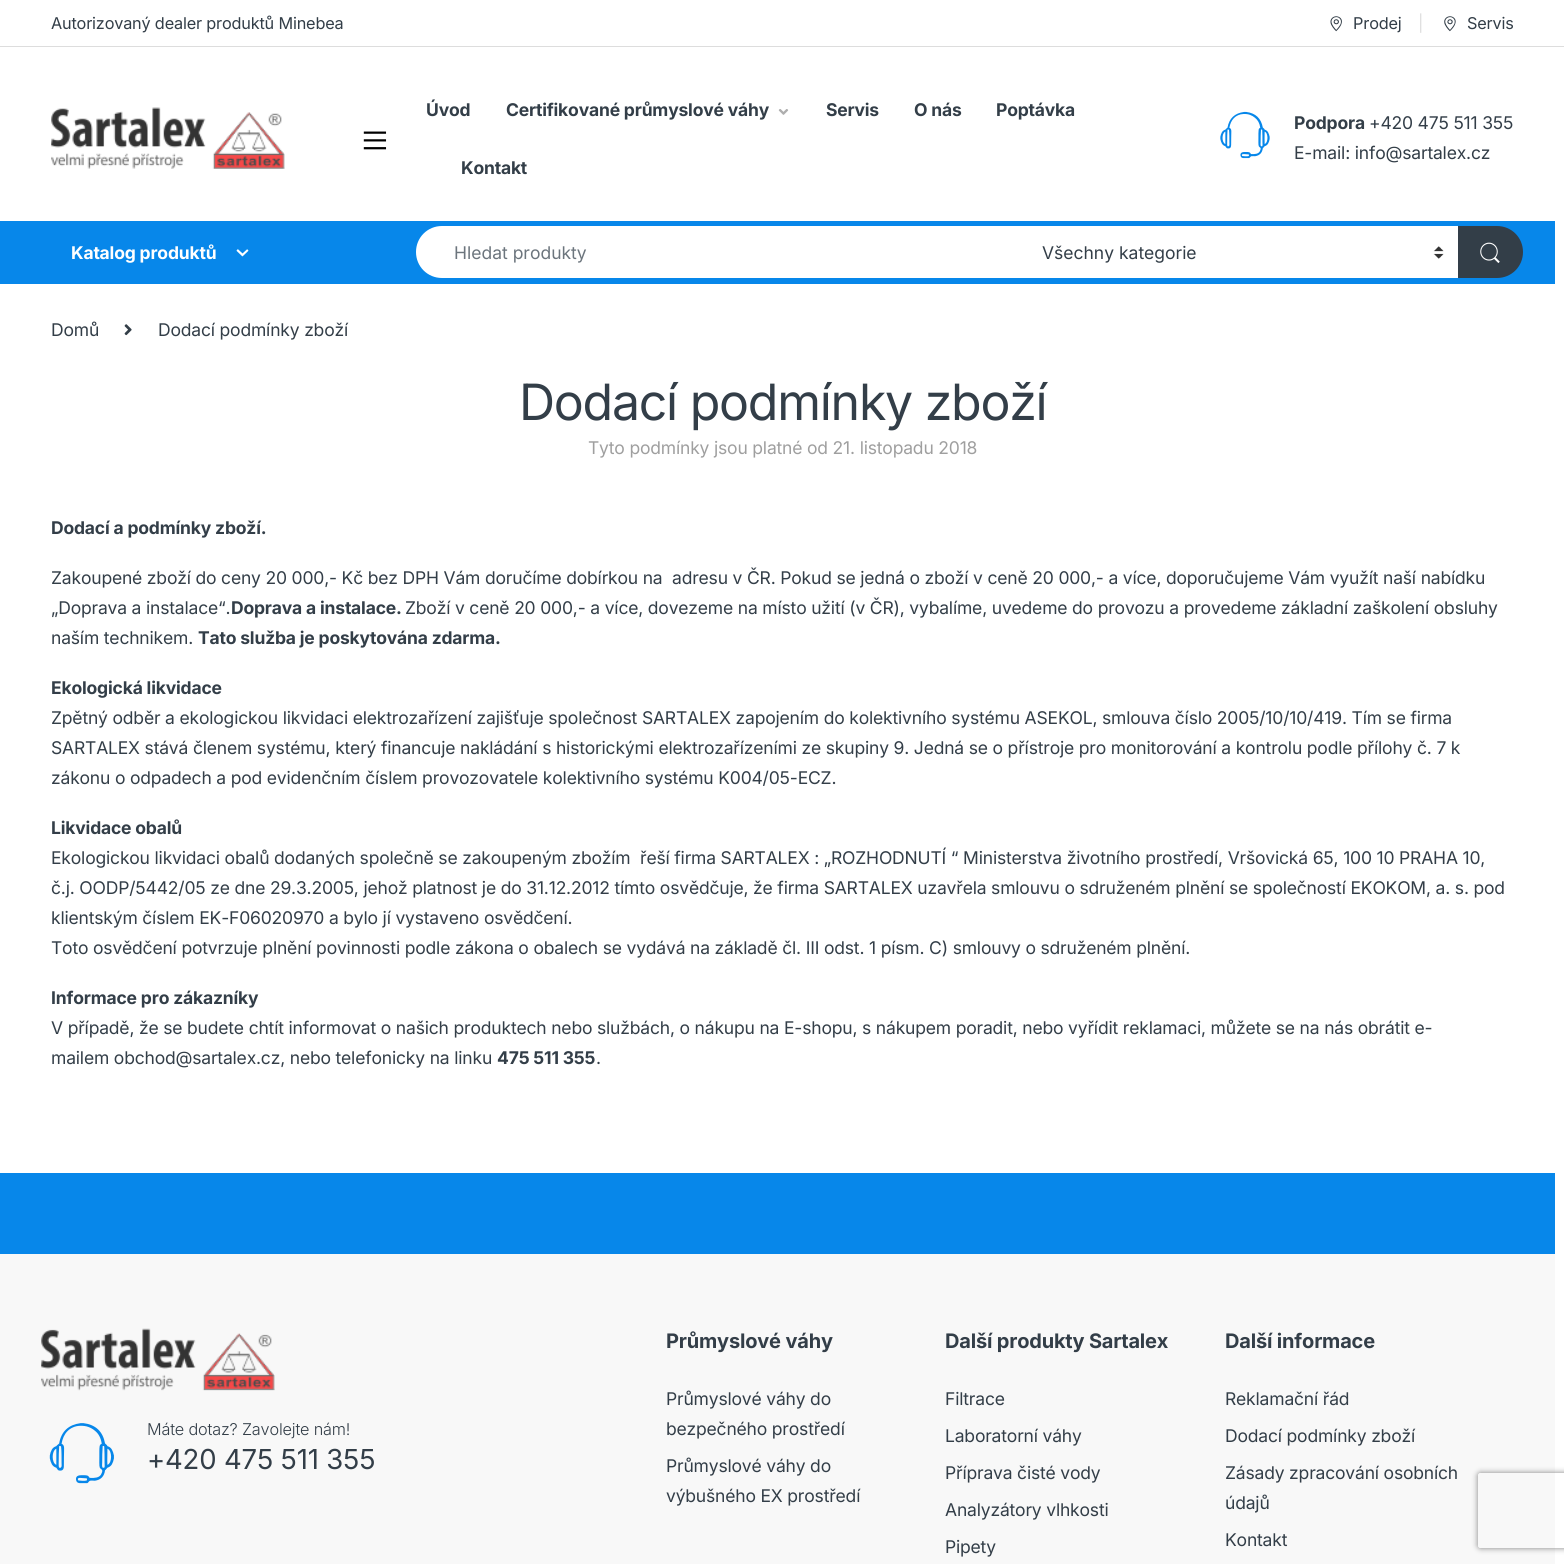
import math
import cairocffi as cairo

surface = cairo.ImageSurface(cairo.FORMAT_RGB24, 1564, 1564)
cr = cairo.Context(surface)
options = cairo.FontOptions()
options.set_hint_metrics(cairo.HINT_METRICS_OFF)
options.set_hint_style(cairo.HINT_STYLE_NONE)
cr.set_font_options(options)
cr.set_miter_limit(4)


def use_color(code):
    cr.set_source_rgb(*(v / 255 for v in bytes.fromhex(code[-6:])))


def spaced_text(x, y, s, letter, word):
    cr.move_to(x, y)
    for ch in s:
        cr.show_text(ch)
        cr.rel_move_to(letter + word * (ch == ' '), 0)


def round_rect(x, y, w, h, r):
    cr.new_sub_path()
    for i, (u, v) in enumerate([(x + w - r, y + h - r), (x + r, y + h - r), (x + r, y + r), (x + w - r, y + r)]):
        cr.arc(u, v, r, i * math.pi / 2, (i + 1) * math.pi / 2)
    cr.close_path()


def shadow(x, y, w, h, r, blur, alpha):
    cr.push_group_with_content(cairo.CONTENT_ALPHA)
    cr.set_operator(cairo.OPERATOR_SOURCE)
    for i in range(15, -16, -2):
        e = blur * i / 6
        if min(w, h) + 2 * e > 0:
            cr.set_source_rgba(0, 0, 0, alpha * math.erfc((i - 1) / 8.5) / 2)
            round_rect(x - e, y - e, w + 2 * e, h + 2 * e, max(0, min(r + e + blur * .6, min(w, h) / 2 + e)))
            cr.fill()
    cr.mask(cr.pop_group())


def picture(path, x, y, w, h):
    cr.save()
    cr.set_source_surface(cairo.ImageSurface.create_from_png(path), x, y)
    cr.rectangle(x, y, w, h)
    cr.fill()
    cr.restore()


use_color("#ffffff")
cr.paint()
use_color("#dddddd")
cr.rectangle(0, 46, 1564, 1)
cr.fill()
cr.select_font_face("Inter")
cr.set_font_size(16.25)
use_color("#333e48")
spaced_text(51, 29, "Autorizovaný dealer produktů Minebea", -0.18, 0)
picture("img1.png", 1330, 16, 12, 16)
spaced_text(1353, 29, "Prodej", -0.18, 0)
use_color("#dddddd")
spaced_text(1418, 29, "|", -0.18, 0)
picture("img2.png", 1444, 16, 12, 16)
use_color("#333e48")
spaced_text(1467, 29, "Servis", -0.18, 0)
picture("img3.png", 51, 107, 234, 62)
picture("img4.png", 363, 131, 24, 19)
cr.select_font_face("Inter", cairo.FONT_SLANT_NORMAL, cairo.FONT_WEIGHT_BOLD)
cr.set_font_size(17.5)
spaced_text(426, 116, "Úvod", -0.18, 0)
spaced_text(506, 116, "Certifikované průmyslové váhy", -0.18, 0)
picture("img5.png", 778, 109, 11, 6)
spaced_text(826, 116, "Servis", -0.18, 0)
spaced_text(914, 116, "O nás", -0.18, 0)
spaced_text(996, 116, "Poptávka", -0.18, 0)
spaced_text(461, 174, "Kontakt", -0.18, 0)
picture("img6.png", 1220, 111, 50, 48)
spaced_text(1294, 129, "Podpora", -0.18, 0)
cr.select_font_face("Inter")
spaced_text(1369, 129, "+420 475 511 355", -0.18, 0)
spaced_text(1294, 159, "E-mail: info@sartalex.cz", -0.18, 0)
use_color("#0787ea")
cr.rectangle(0, 221, 1555, 63)
cr.fill()
cr.select_font_face("Inter", cairo.FONT_SLANT_NORMAL, cairo.FONT_WEIGHT_BOLD)
use_color("#ffffff")
spaced_text(71, 259, "Katalog produktů", -0.18, 0)
picture("img7.png", 236, 249, 13, 8)
cr.new_path()
cr.move_to(442, 226)
cr.line_to(1029, 226)
cr.line_to(1029, 278)
cr.line_to(442, 278)
cr.curve_to(427.5, 278, 416, 266.5, 416, 252)
cr.curve_to(416, 237.5, 427.5, 226, 442, 226)
cr.close_path()
cr.fill()
cr.select_font_face("Inter")
use_color("#6c757d")
cr.move_to(454, 259)
cr.show_text("Hledat produkty")
use_color("#ffffff")
cr.rectangle(1029, 226, 429, 52)
cr.fill()
picture("img8.png", 1433, 246, 11, 13)
use_color("#333e48")
cr.move_to(1042, 259)
cr.show_text("Všechny kategorie")
cr.new_path()
cr.move_to(1458, 226)
cr.line_to(1497, 226)
cr.curve_to(1511.5, 226, 1523, 237.5, 1523, 252)
cr.curve_to(1523, 266.5, 1511.5, 278, 1497, 278)
cr.line_to(1458, 278)
cr.close_path()
cr.fill()
picture("img9.png", 1480, 242, 20, 21)
spaced_text(51, 336, "Domů", -0.18, 0)
picture("img10.png", 124, 324, 8, 12)
spaced_text(158, 336, "Dodací podmínky zboží", -0.18, 0)
cr.set_font_size(50)
spaced_text(519, 420, "Dodací podmínky zboží", -1.25, 0)
cr.set_font_size(17.5)
use_color("#9f9f9f")
spaced_text(588, 454, "Tyto podmínky jsou platné od 21. listopadu 2018", -0.18, 0)
cr.select_font_face("Inter", cairo.FONT_SLANT_NORMAL, cairo.FONT_WEIGHT_BOLD)
use_color("#333e48")
spaced_text(51, 534, "Dodací a podmínky zboží.", -0.18, 0)
cr.select_font_face("Inter")
spaced_text(51, 584, "Zakoupené zboží do ceny 20 000,- Kč bez DPH Vám doručíme dobírkou na  adresu v ČR. Pokud se jedná o zboží v ceně 20 000,- a více, doporučujeme Vám využít naší nabídku", -0.18, 0)
spaced_text(51, 614, "„Doprava a instalace“.", -0.18, 0)
cr.select_font_face("Inter", cairo.FONT_SLANT_NORMAL, cairo.FONT_WEIGHT_BOLD)
spaced_text(231, 614, "Doprava a instalace.", -0.18, 0)
cr.select_font_face("Inter")
spaced_text(405, 614, "Zboží v ceně 20 000,- a více, dovezeme na místo užití (v ČR), vybalíme, uvedeme do provozu a provedeme základní zaškolení obsluhy", -0.18, 0)
spaced_text(51, 644, "naším technikem.", -0.18, 0)
cr.select_font_face("Inter", cairo.FONT_SLANT_NORMAL, cairo.FONT_WEIGHT_BOLD)
spaced_text(198, 644, "Tato služba je poskytována zdarma.", -0.18, 0)
spaced_text(51, 694, "Ekologická likvidace", -0.18, 0)
cr.select_font_face("Inter")
spaced_text(51, 724, "Zpětný odběr a ekologickou likvidaci elektrozařízení zajišťuje společnost SARTALEX zapojením do kolektivního systému ASEKOL, smlouva číslo 2005/10/10/419. Tím se firma", -0.18, 0)
spaced_text(51, 754, "SARTALEX stává členem systému, který financuje nakládání s historickými elektrozařízeními ze skupiny 9. Jedná se o přístroje pro monitorování a kontrolu podle přílohy č. 7 k", -0.18, 0)
spaced_text(51, 784, "zákonu o odpadech a pod evidenčním číslem provozovatele kolektivního systému K004/05-ECZ.", -0.18, 0)
cr.select_font_face("Inter", cairo.FONT_SLANT_NORMAL, cairo.FONT_WEIGHT_BOLD)
spaced_text(51, 834, "Likvidace obalů", -0.18, 0)
cr.select_font_face("Inter")
spaced_text(51, 864, "Ekologickou likvidaci obalů dodaných společně se zakoupeným zbožím  řeší firma SARTALEX : „ROZHODNUTÍ “ Ministerstva životního prostředí, Vršovická 65, 100 10 PRAHA 10,", -0.18, 0)
spaced_text(51, 894, "č.j. OODP/5442/05 ze dne 29.3.2005, jehož platnost je do 31.12.2012 tímto osvědčuje, že firma SARTALEX uzavřela smlouvu o sdruženém plnění se společností EKOKOM, a. s. pod", -0.18, 0)
spaced_text(51, 924, "klientským číslem EK-F06020970 a bylo jí vystaveno osvědčení.", -0.18, 0)
spaced_text(51, 954, "Toto osvědčení potvrzuje plnění povinnosti podle zákona o obalech se vydává na základě čl. III odst. 1 písm. C) smlouvy o sdruženém plnění.", -0.18, 0)
cr.select_font_face("Inter", cairo.FONT_SLANT_NORMAL, cairo.FONT_WEIGHT_BOLD)
spaced_text(51, 1004, "Informace pro zákazníky", -0.18, 0)
cr.select_font_face("Inter")
spaced_text(51, 1034, "V případě, že se budete chtít informovat o našich produktech nebo službách, o nákupu na E-shopu, s nákupem poradit, nebo vyřídit reklamaci, můžete se na nás obrátit e-", -0.18, 0)
spaced_text(51, 1064, "mailem obchod@sartalex.cz, nebo telefonicky na linku", -0.18, 0)
cr.select_font_face("Inter", cairo.FONT_SLANT_NORMAL, cairo.FONT_WEIGHT_BOLD)
spaced_text(497, 1064, "475 511 355", -0.18, 0)
cr.select_font_face("Inter")
spaced_text(596, 1064, ".", -0.18, 0)
use_color("#0787ea")
cr.rectangle(0, 1173, 1555, 81)
cr.fill()
use_color("#f8f8f8")
cr.rectangle(0, 1254, 1555, 310)
cr.fill()
picture("img11.png", 41, 1328, 234, 63)
picture("img12.png", 49, 1423, 65, 61)
cr.select_font_face("Inter Light")
cr.set_font_size(16.25)
use_color("#333e48")
spaced_text(147, 1435, "Máte dotaz? Zavolejte nám!", -0.18, 0)
cr.select_font_face("Inter")
cr.set_font_size(27.5)
spaced_text(147, 1469, "+420 475 511 355", -0.18, 0)
cr.select_font_face("Inter", cairo.FONT_SLANT_NORMAL, cairo.FONT_WEIGHT_BOLD)
cr.set_font_size(20)
spaced_text(666, 1348, "Průmyslové váhy", -0.18, 0)
cr.select_font_face("Inter")
cr.set_font_size(17.5)
spaced_text(666, 1405, "Průmyslové váhy do", -0.18, 0)
spaced_text(666, 1435, "bezpečného prostředí", -0.18, 0)
spaced_text(666, 1472, "Průmyslové váhy do", -0.18, 0)
spaced_text(666, 1502, "výbušného EX prostředí", -0.18, 0)
cr.select_font_face("Inter", cairo.FONT_SLANT_NORMAL, cairo.FONT_WEIGHT_BOLD)
cr.set_font_size(20)
spaced_text(945, 1348, "Další produkty Sartalex", -0.18, 0)
cr.select_font_face("Inter")
cr.set_font_size(17.5)
spaced_text(945, 1405, "Filtrace", -0.18, 0)
spaced_text(945, 1442, "Laboratorní váhy", -0.18, 0)
spaced_text(945, 1479, "Příprava čisté vody", -0.18, 0)
spaced_text(945, 1516, "Analyzátory vlhkosti", -0.18, 0)
spaced_text(945, 1553, "Pipety", -0.18, 0)
cr.select_font_face("Inter", cairo.FONT_SLANT_NORMAL, cairo.FONT_WEIGHT_BOLD)
cr.set_font_size(20)
spaced_text(1225, 1348, "Další informace", -0.18, 0)
cr.select_font_face("Inter")
cr.set_font_size(17.5)
spaced_text(1225, 1405, "Reklamační řád", -0.18, 0)
spaced_text(1225, 1442, "Dodací podmínky zboží", -0.18, 0)
spaced_text(1225, 1479, "Zásady zpracování osobních", -0.18, 0)
spaced_text(1225, 1509, "údajů", -0.18, 0)
spaced_text(1225, 1546, "Kontakt", -0.18, 0)
cr.save()
cr.set_fill_rule(cairo.FILL_RULE_EVEN_ODD)
cr.new_path()
cr.move_to(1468, 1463)
cr.line_to(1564, 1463)
cr.line_to(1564, 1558)
cr.line_to(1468, 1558)
cr.close_path()
cr.move_to(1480.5, 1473)
cr.line_to(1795.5, 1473)
cr.curve_to(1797, 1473, 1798, 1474, 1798, 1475.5)
cr.line_to(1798, 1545.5)
cr.curve_to(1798, 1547, 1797, 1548, 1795.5, 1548)
cr.line_to(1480.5, 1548)
cr.curve_to(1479, 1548, 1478, 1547, 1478, 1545.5)
cr.line_to(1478, 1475.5)
cr.curve_to(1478, 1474, 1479, 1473, 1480.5, 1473)
cr.close_path()
cr.clip()
use_color("#808080")
shadow(1478, 1473, 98, 75, 2.5, 3, 1)
cr.restore()
surface.write_to_png("result.png")
